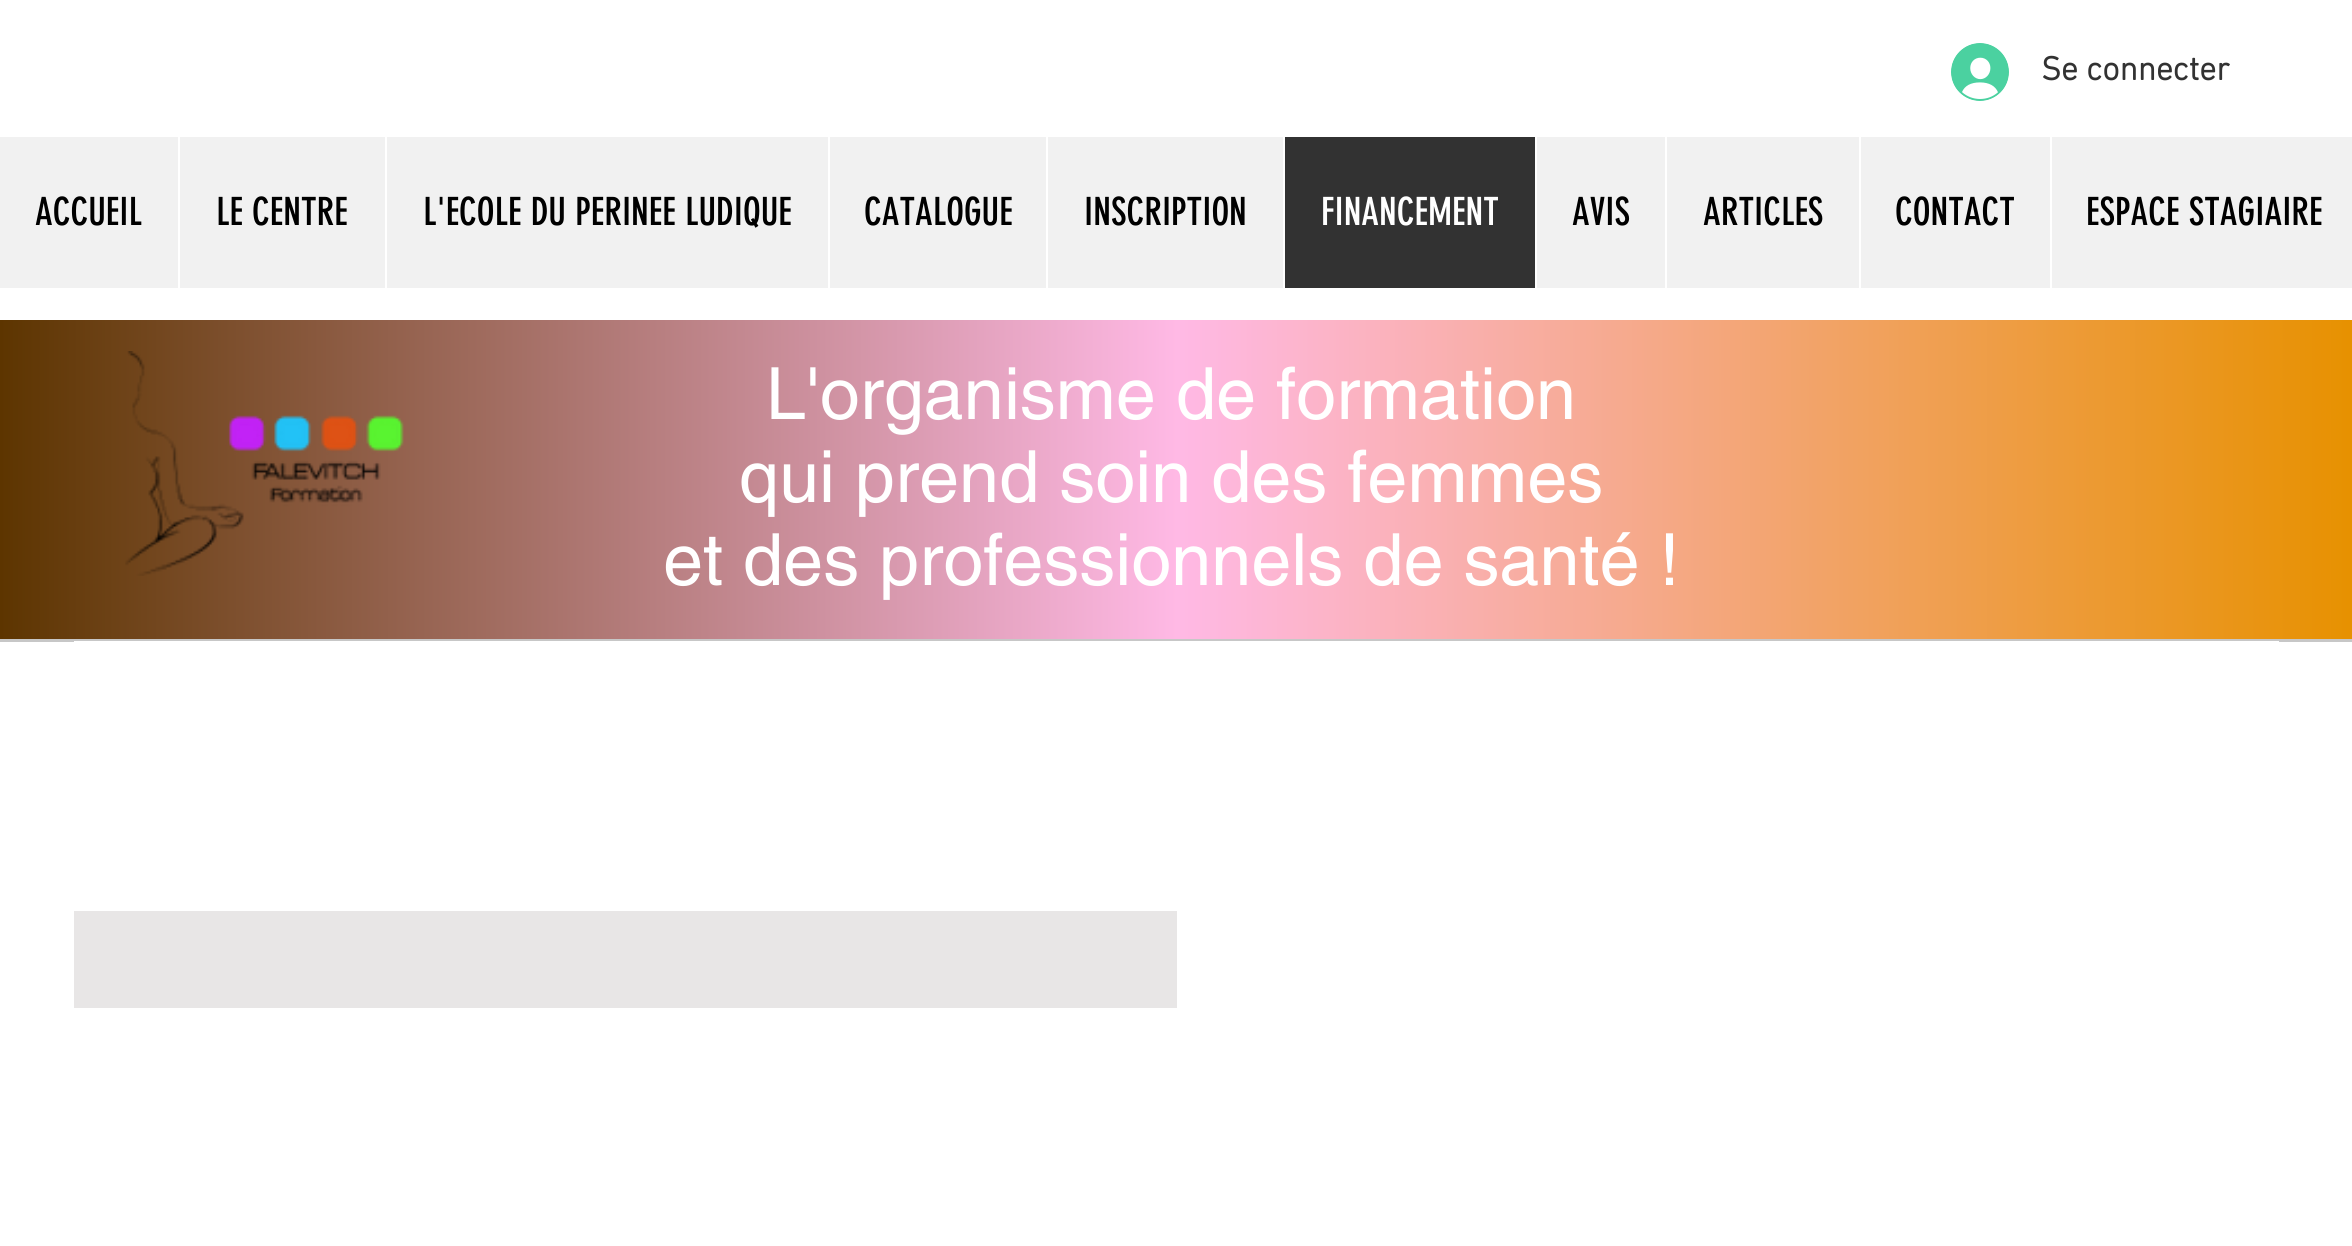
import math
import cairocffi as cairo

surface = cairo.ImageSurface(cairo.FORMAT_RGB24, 2352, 1246)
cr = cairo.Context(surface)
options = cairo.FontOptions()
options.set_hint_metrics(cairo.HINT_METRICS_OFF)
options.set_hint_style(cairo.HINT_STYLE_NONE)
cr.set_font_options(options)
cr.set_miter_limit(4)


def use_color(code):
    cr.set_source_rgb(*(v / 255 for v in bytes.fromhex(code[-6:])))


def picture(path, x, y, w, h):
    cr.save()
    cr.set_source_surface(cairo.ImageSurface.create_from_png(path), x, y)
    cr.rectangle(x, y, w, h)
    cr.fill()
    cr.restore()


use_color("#ffffff")
cr.paint()
picture("img1.png", 1951, 43, 58, 58)
cr.select_font_face("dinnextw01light", cairo.FONT_SLANT_NORMAL, cairo.FONT_WEIGHT_BOLD)
cr.set_font_size(33.75)
use_color("#323232")
cr.move_to(2041, 80)
cr.show_text("Se connecter")
use_color("#f1f1f1")
cr.rectangle(0, 137, 2352, 151)
cr.fill()
cr.select_font_face("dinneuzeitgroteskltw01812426")
cr.set_font_size(38.25)
use_color("#000000")
cr.move_to(35, 225)
cr.show_text("ACCUEIL")
use_color("#ffffff")
cr.rectangle(178, 137, 2, 151)
cr.fill()
use_color("#000000")
cr.move_to(216, 225)
cr.show_text("LE CENTRE")
use_color("#ffffff")
cr.rectangle(385, 137, 2, 151)
cr.fill()
use_color("#000000")
cr.move_to(423, 225)
cr.show_text("L'ECOLE DU PERINEE LUDIQUE")
use_color("#ffffff")
cr.rectangle(828, 137, 2, 151)
cr.fill()
use_color("#000000")
cr.move_to(864, 225)
cr.show_text("CATALOGUE")
use_color("#ffffff")
cr.rectangle(1046, 137, 2, 151)
cr.fill()
use_color("#000000")
cr.move_to(1084, 225)
cr.show_text("INSCRIPTION")
use_color("#323232")
cr.rectangle(1285, 137, 250, 151)
cr.fill()
use_color("#ffffff")
cr.rectangle(1283, 137, 2, 151)
cr.fill()
cr.move_to(1321, 225)
cr.show_text("FINANCEMENT")
cr.rectangle(1535, 137, 2, 151)
cr.fill()
use_color("#000000")
cr.move_to(1572, 225)
cr.show_text("AVIS")
use_color("#ffffff")
cr.rectangle(1665, 137, 2, 151)
cr.fill()
use_color("#000000")
cr.move_to(1703, 225)
cr.show_text("ARTICLES")
use_color("#ffffff")
cr.rectangle(1859, 137, 2, 151)
cr.fill()
use_color("#000000")
cr.move_to(1895, 225)
cr.show_text("CONTACT")
use_color("#ffffff")
cr.rectangle(2050, 137, 2, 151)
cr.fill()
use_color("#000000")
cr.move_to(2086, 225)
cr.show_text("ESPACE STAGIAIRE")
gradient = cairo.LinearGradient(0, 479, 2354, 479)
gradient.add_color_stop_rgba(0, 0.365, 0.208, 0, 1)
gradient.add_color_stop_rgba(0.5, 1, 0.725, 0.898, 1)
gradient.add_color_stop_rgba(1, 0.906, 0.569, 0, 1)
cr.set_source(gradient)
cr.rectangle(0, 320, 2352, 319)
cr.fill()
picture("img2.png", 125, 351, 279, 225)
cr.select_font_face("helvetica")
cr.set_font_size(72)
use_color("#ffffff")
cr.move_to(766, 419)
cr.show_text("L'organisme de formation")
cr.move_to(739, 502)
cr.show_text("qui prend soin des femmes")
cr.move_to(663, 585)
cr.show_text("et des professionnels de santé !")
use_color("#c7c7c7")
cr.rectangle(0, 639, 2352, 3)
cr.fill()
use_color("#ffffff")
cr.rectangle(74, 641, 2205, 1)
cr.fill()
use_color("#e8e6e6")
cr.rectangle(74, 911, 1103, 97)
cr.fill()
surface.write_to_png("result.png")
